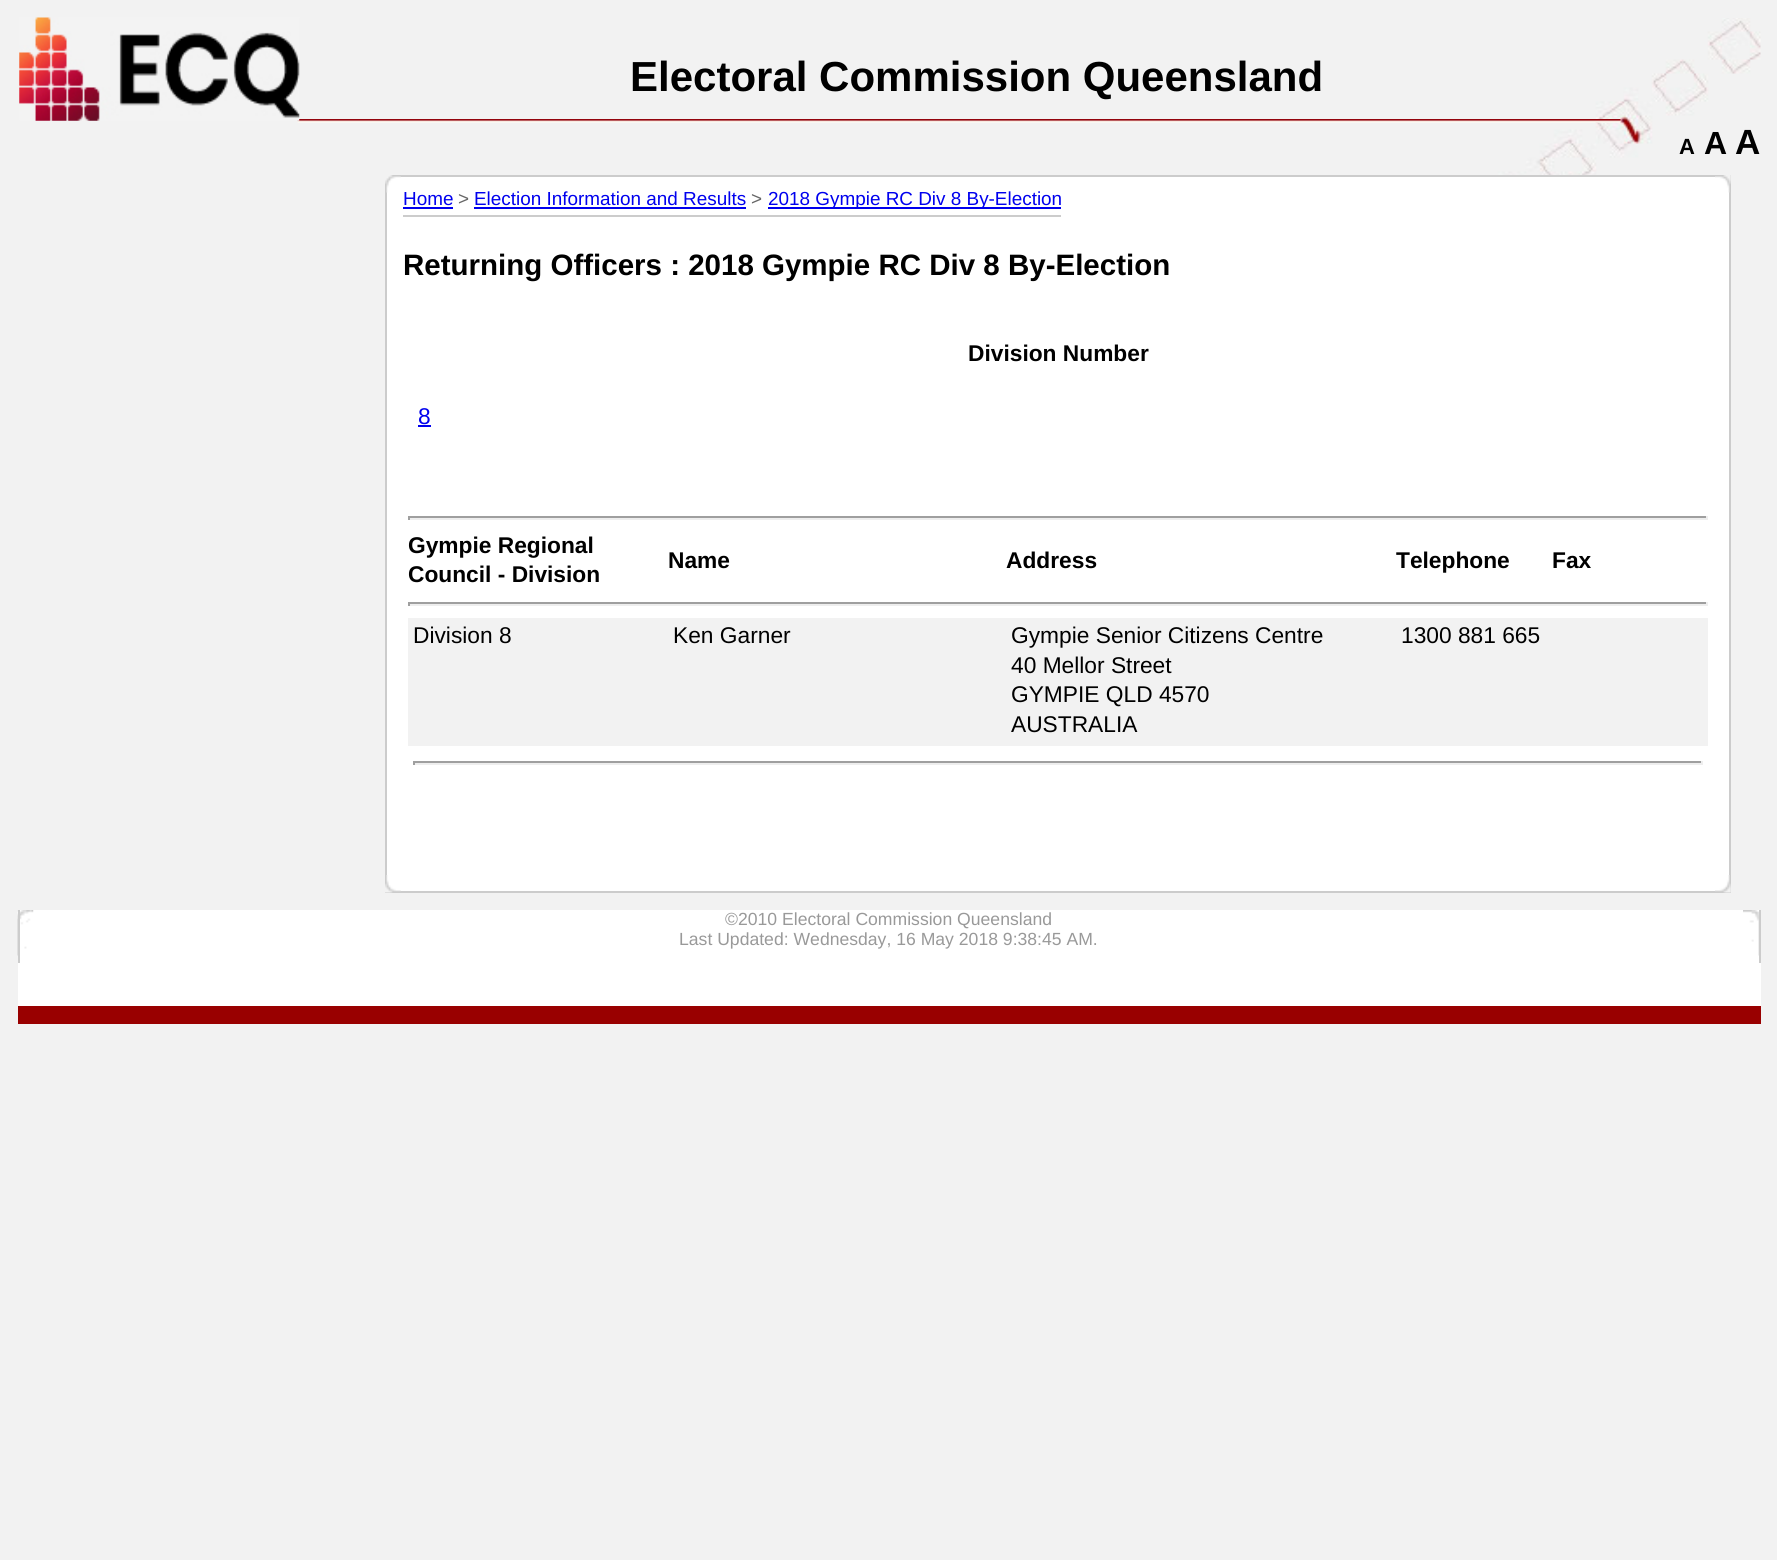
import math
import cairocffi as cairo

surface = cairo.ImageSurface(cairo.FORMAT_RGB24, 1777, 1560)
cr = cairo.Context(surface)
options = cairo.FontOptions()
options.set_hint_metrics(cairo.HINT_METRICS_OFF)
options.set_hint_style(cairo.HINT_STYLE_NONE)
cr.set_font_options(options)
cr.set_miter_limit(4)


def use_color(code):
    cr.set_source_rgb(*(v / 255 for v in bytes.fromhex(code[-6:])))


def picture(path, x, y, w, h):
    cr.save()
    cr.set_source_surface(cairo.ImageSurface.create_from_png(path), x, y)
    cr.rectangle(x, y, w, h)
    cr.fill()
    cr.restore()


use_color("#f2f2f2")
cr.paint()
picture("img1.png", 1484, 18, 277, 212)
picture("img3.png", 297, 119, 1324, 4)
picture("img2.png", 19, 17, 281, 104)
cr.select_font_face("Liberation Sans", cairo.FONT_SLANT_NORMAL, cairo.FONT_WEIGHT_BOLD)
cr.set_font_size(42)
use_color("#000000")
cr.move_to(630, 91)
cr.show_text("Electoral Commission Queensland")
cr.set_font_size(22)
cr.move_to(1679, 154)
cr.show_text("A")
cr.set_font_size(32)
cr.move_to(1704, 154)
cr.show_text("A")
cr.set_font_size(35)
cr.move_to(1735, 154)
cr.show_text("A")
use_color("#ffffff")
cr.rectangle(386, 176, 1344, 716)
cr.fill_preserve()
use_color("#cccccc")
cr.stroke()
picture("img4.png", 385, 175, 16, 18)
picture("img5.png", 1715, 175, 16, 18)
picture("img6.png", 385, 875, 16, 18)
picture("img7.png", 1715, 875, 16, 18)
cr.rectangle(403, 215, 658, 2)
cr.fill()
cr.select_font_face("Liberation Sans")
cr.set_font_size(18.9)
use_color("#0000ee")
cr.move_to(403, 205)
cr.show_text("Home")
cr.rectangle(403, 207, 50, 2)
cr.fill()
use_color("#666666")
cr.move_to(458, 205)
cr.show_text(">")
use_color("#0000ee")
cr.move_to(474, 205)
cr.show_text("Election Information and Results")
cr.rectangle(474, 207, 272, 2)
cr.fill()
use_color("#666666")
cr.move_to(751, 205)
cr.show_text(">")
use_color("#0000ee")
cr.rectangle(768, 207, 293, 2)
cr.fill()
cr.move_to(768, 205)
cr.show_text("2018 Gympie RC Div 8 By-Election")
cr.select_font_face("Liberation Sans", cairo.FONT_SLANT_NORMAL, cairo.FONT_WEIGHT_BOLD)
cr.set_font_size(29.5)
use_color("#000000")
cr.move_to(403, 275)
cr.show_text("Returning Officers : 2018 Gympie RC Div 8 By-Election")
cr.set_font_size(22.75)
cr.move_to(968, 361)
cr.show_text("Division Number")
cr.select_font_face("Liberation Sans")
use_color("#0000ee")
cr.move_to(418, 424)
cr.show_text("8")
cr.rectangle(418, 425, 13, 2)
cr.fill()
use_color("#9f9f9f")
cr.rectangle(408, 516, 1300, 2)
cr.fill()
use_color("#eeeeee")
cr.rectangle(1706, 516, 2, 4)
cr.fill()
cr.rectangle(408, 518, 1300, 2)
cr.fill()
use_color("#9f9f9f")
cr.rectangle(408, 516, 2, 4)
cr.fill()
cr.select_font_face("Liberation Sans", cairo.FONT_SLANT_NORMAL, cairo.FONT_WEIGHT_BOLD)
use_color("#000000")
cr.move_to(408, 553)
cr.show_text("Gympie Regional")
cr.move_to(408, 582)
cr.show_text("Council - Division")
cr.move_to(668, 568)
cr.show_text("Name")
cr.move_to(1006, 568)
cr.show_text("Address")
cr.move_to(1396, 568)
cr.show_text("Telephone")
cr.move_to(1552, 568)
cr.show_text("Fax")
use_color("#9f9f9f")
cr.rectangle(408, 602, 1300, 2)
cr.fill()
use_color("#eeeeee")
cr.rectangle(1706, 602, 2, 4)
cr.fill()
cr.rectangle(408, 604, 1300, 2)
cr.fill()
use_color("#9f9f9f")
cr.rectangle(408, 602, 2, 4)
cr.fill()
use_color("#f2f2f2")
cr.rectangle(408, 618, 1300, 128)
cr.fill()
cr.select_font_face("Liberation Sans")
use_color("#000000")
cr.move_to(413, 643)
cr.show_text("Division 8")
cr.move_to(673, 643)
cr.show_text("Ken Garner")
cr.move_to(1011, 643)
cr.show_text("Gympie Senior Citizens Centre")
cr.move_to(1011, 673)
cr.show_text("40 Mellor Street")
cr.move_to(1011, 702)
cr.show_text("GYMPIE QLD 4570")
cr.move_to(1011, 732)
cr.show_text("AUSTRALIA")
cr.move_to(1401, 643)
cr.show_text("1300 881 665")
use_color("#9f9f9f")
cr.rectangle(413, 761, 1290, 2)
cr.fill()
use_color("#eeeeee")
cr.rectangle(1701, 761, 2, 4)
cr.fill()
cr.rectangle(413, 763, 1290, 2)
cr.fill()
use_color("#9f9f9f")
cr.rectangle(413, 761, 2, 4)
cr.fill()
use_color("#ffffff")
cr.rectangle(18, 910, 1743, 96)
cr.fill()
use_color("#990000")
cr.rectangle(18, 1006, 1743, 18)
cr.fill()
picture("img8.png", 17, 910, 17, 46)
picture("img9.png", 1743, 910, 16, 46)
use_color("#cccccc")
cr.rectangle(1759, 910, 2, 53)
cr.fill()
cr.rectangle(18, 910, 2, 53)
cr.fill()
cr.set_font_size(17.6)
use_color("#999999")
cr.move_to(725, 925)
cr.show_text("©2010 Electoral Commission Queensland")
cr.move_to(679, 945)
cr.show_text("Last Updated: Wednesday, 16 May 2018 9:38:45 AM.")
surface.write_to_png("result.png")
